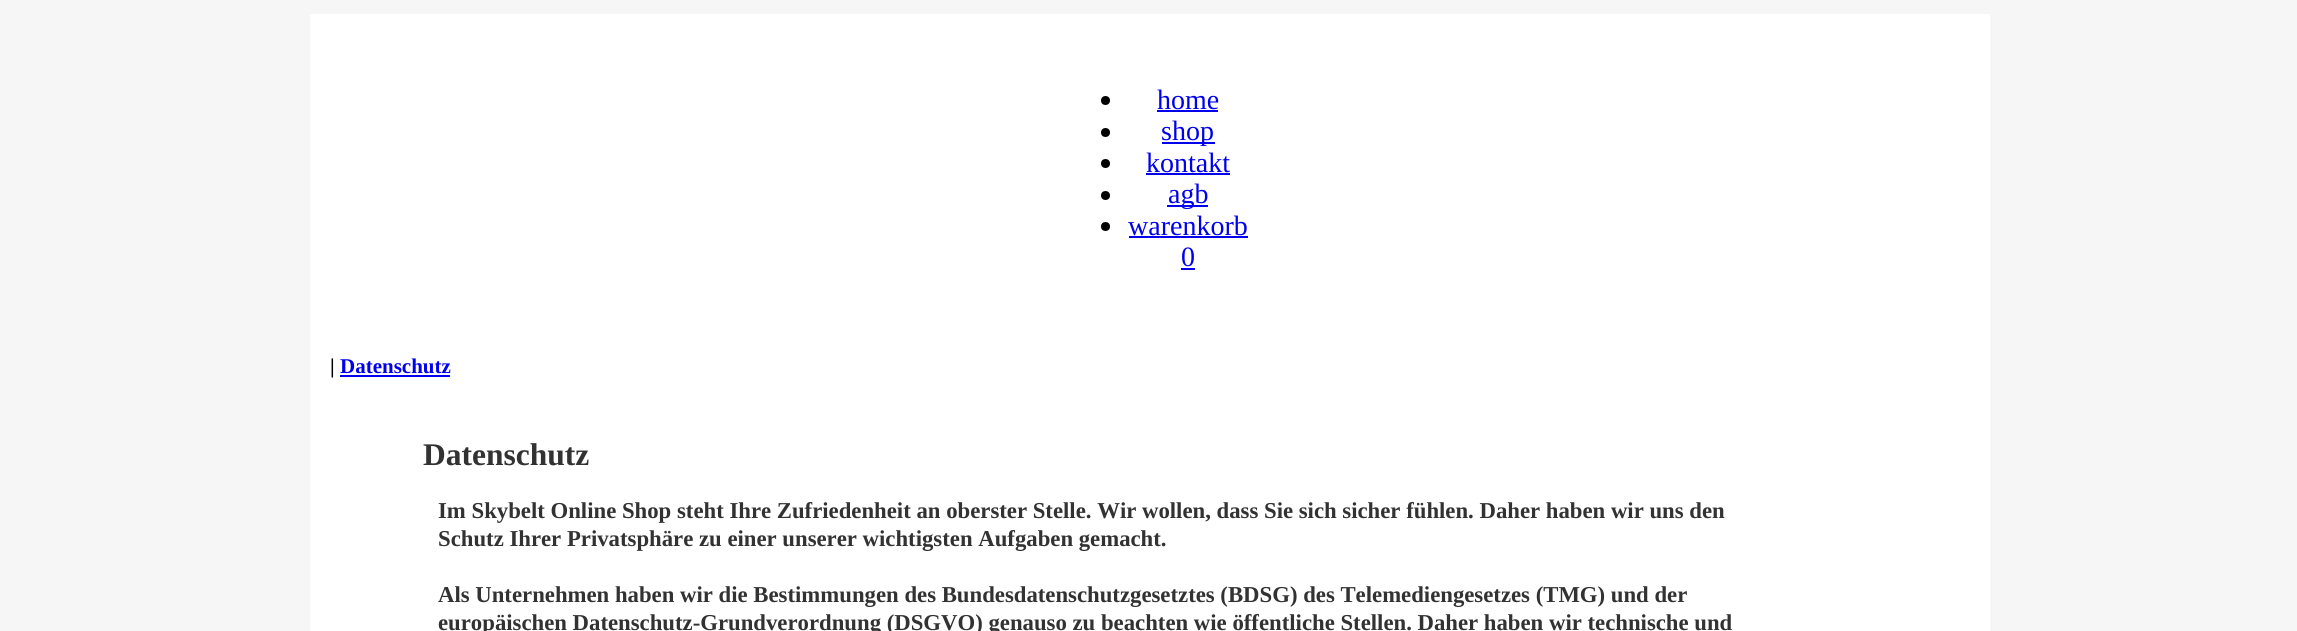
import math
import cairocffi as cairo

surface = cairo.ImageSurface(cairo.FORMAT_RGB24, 2297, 631)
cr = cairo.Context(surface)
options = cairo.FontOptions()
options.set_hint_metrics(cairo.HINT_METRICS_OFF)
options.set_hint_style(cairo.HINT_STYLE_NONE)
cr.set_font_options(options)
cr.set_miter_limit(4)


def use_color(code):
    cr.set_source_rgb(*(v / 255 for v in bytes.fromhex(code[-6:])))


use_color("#f6f6f6")
cr.paint()
use_color("#ffffff")
cr.rectangle(310, 14, 1680, 617)
cr.fill()
use_color("#000000")
cr.arc(1105.5, 100.5, 4.5, 0, 2 * math.pi)
cr.fill()
cr.select_font_face("Liberation Serif")
cr.set_font_size(28)
use_color("#0000ee")
cr.move_to(1157, 109)
cr.show_text("home")
cr.rectangle(1157, 110, 61, 2)
cr.fill()
use_color("#000000")
cr.arc(1105.5, 132.5, 4.5, 0, 2 * math.pi)
cr.fill()
use_color("#0000ee")
cr.rectangle(1162, 142, 53, 2)
cr.fill()
cr.move_to(1161, 140)
cr.show_text("shop")
use_color("#000000")
cr.new_path()
cr.arc(1105.5, 163.5, 4.5, 0, 2 * math.pi)
cr.fill()
use_color("#0000ee")
cr.move_to(1146, 172)
cr.show_text("kontakt")
cr.rectangle(1146, 173, 84, 2)
cr.fill()
use_color("#000000")
cr.arc(1105.5, 195.5, 4.5, 0, 2 * math.pi)
cr.fill()
use_color("#0000ee")
cr.rectangle(1167, 205, 41, 2)
cr.fill()
cr.move_to(1168, 203)
cr.show_text("agb")
use_color("#000000")
cr.new_path()
cr.arc(1105.5, 226.5, 4.5, 0, 2 * math.pi)
cr.fill()
use_color("#0000ee")
cr.move_to(1128, 235)
cr.show_text("warenkorb")
cr.rectangle(1129, 236, 119, 2)
cr.fill()
cr.move_to(1181, 266)
cr.show_text("0")
cr.rectangle(1181, 268, 14, 2)
cr.fill()
cr.select_font_face("Liberation Serif", cairo.FONT_SLANT_NORMAL, cairo.FONT_WEIGHT_BOLD)
cr.set_font_size(21)
use_color("#000000")
cr.move_to(330, 373)
cr.show_text("|")
use_color("#0000ee")
cr.move_to(340, 373)
cr.show_text("Datenschutz")
cr.rectangle(340, 375, 110, 2)
cr.fill()
cr.set_font_size(31.5)
use_color("#323232")
cr.move_to(423, 465)
cr.show_text("Datenschutz")
cr.set_font_size(22.75)
cr.move_to(438, 518)
cr.show_text("Im Skybelt Online Shop steht Ihre Zufriedenheit an oberster Stelle. Wir wollen, dass Sie sich sicher fühlen. Daher haben wir uns den")
cr.move_to(438, 546)
cr.show_text("Schutz Ihrer Privatsphäre zu einer unserer wichtigsten Aufgaben gemacht.")
cr.move_to(438, 602)
cr.show_text("Als Unternehmen haben wir die Bestimmungen des Bundesdatenschutzgesetztes (BDSG) des Telemediengesetzes (TMG) und der")
cr.move_to(438, 630)
cr.show_text("europäischen Datenschutz-Grundverordnung (DSGVO) genauso zu beachten wie öffentliche Stellen. Daher haben wir technische und")
surface.write_to_png("result.png")
